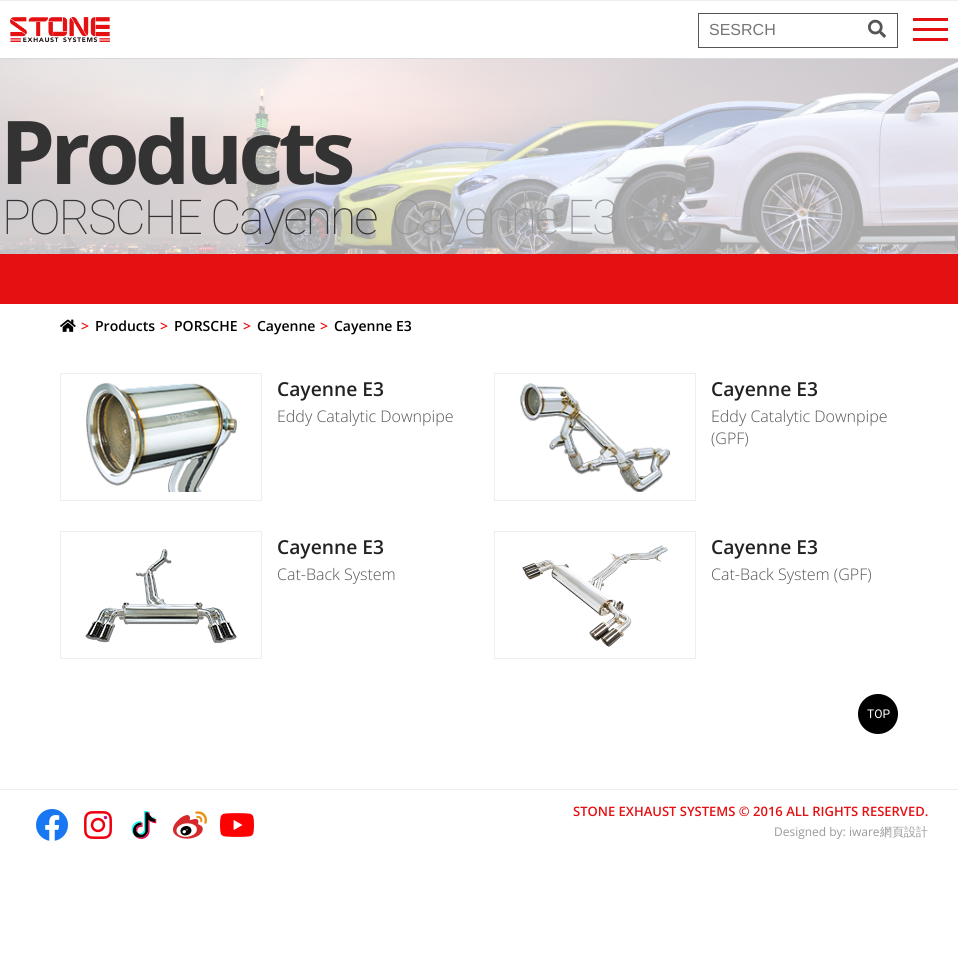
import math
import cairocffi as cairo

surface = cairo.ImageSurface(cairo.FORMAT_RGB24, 958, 963)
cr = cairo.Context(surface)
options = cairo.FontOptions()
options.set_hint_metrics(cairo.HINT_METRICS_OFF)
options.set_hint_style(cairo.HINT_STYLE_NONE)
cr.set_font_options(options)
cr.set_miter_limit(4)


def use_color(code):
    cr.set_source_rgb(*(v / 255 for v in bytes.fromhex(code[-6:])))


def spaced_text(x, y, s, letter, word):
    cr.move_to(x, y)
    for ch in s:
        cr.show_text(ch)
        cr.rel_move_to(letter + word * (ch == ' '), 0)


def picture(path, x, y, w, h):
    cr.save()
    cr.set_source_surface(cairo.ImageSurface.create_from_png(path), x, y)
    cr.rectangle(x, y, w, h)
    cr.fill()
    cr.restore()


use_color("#ffffff")
cr.paint()
use_color("#eeeeee")
cr.rectangle(0, 0, 958, 1)
cr.fill()
use_color("#d9d9d9")
cr.rectangle(0, 58, 958, 1)
cr.fill()
picture("img1.png", 10, 17, 100, 25)
cr.rectangle(698.5, 13.5, 199, 34)
use_color("#555555")
cr.set_line_width(1)
cr.stroke()
cr.select_font_face("Liberation Sans")
cr.set_font_size(16)
use_color("#757575")
cr.move_to(709, 35)
cr.show_text("SESRCH")
picture("img2.png", 868, 19, 18, 19)
use_color("#e41012")
cr.rectangle(913, 18, 35, 3)
cr.fill()
cr.rectangle(913, 28, 35, 3)
cr.fill()
cr.rectangle(913, 38, 35, 3)
cr.fill()
picture("img3.png", 0, 59, 958, 195)
cr.select_font_face("Open Sans", cairo.FONT_SLANT_NORMAL, cairo.FONT_WEIGHT_BOLD)
cr.set_font_size(88)
use_color("#333333")
spaced_text(0, 184, "Products", -5, 0)
cr.select_font_face("Roboto Thin")
cr.set_font_size(48)
spaced_text(2, 234, "PORSCHE Cayenne", -2, 0)
use_color("#999999")
spaced_text(391, 234, "Cayenne E3", -2, 0)
use_color("#e41012")
cr.rectangle(0, 254, 958, 50)
cr.fill()
picture("img4.png", 60, 319, 16, 13)
cr.select_font_face("Open Sans SemiBold")
cr.set_font_size(14)
cr.move_to(81, 331)
cr.show_text(">")
use_color("#000000")
cr.move_to(95, 331)
cr.show_text("Products")
use_color("#e41012")
cr.move_to(160, 331)
cr.show_text(">")
use_color("#000000")
cr.move_to(174, 331)
cr.show_text("PORSCHE")
use_color("#e41012")
cr.move_to(243, 331)
cr.show_text(">")
use_color("#000000")
cr.move_to(257, 331)
cr.show_text("Cayenne")
use_color("#e41012")
cr.move_to(320, 331)
cr.show_text(">")
use_color("#000000")
cr.move_to(334, 331)
cr.show_text("Cayenne E3")
cr.rectangle(60.5, 373.5, 201, 127)
use_color("#eeeeee")
cr.stroke()
picture("img5.png", 86, 382, 151, 110)
cr.set_font_size(19.25)
use_color("#222222")
cr.move_to(277, 396)
cr.show_text("Cayenne E3")
cr.select_font_face("Open Sans Light")
cr.set_font_size(16)
use_color("#555555")
cr.move_to(277, 422)
cr.show_text("Eddy Catalytic Downpipe")
cr.rectangle(494.5, 373.5, 201, 127)
use_color("#eeeeee")
cr.stroke()
picture("img6.png", 520, 383, 151, 109)
cr.select_font_face("Open Sans SemiBold")
cr.set_font_size(19.25)
use_color("#222222")
cr.move_to(711, 396)
cr.show_text("Cayenne E3")
cr.select_font_face("Open Sans Light")
cr.set_font_size(16)
use_color("#555555")
cr.move_to(711, 422)
cr.show_text("Eddy Catalytic Downpipe")
cr.move_to(711, 444)
cr.show_text("(GPF)")
cr.rectangle(60.5, 531.5, 201, 127)
use_color("#eeeeee")
cr.stroke()
picture("img7.png", 85, 549, 152, 94)
cr.select_font_face("Open Sans SemiBold")
cr.set_font_size(19.25)
use_color("#222222")
cr.move_to(277, 554)
cr.show_text("Cayenne E3")
cr.select_font_face("Open Sans Light")
cr.set_font_size(16)
use_color("#555555")
cr.move_to(277, 580)
cr.show_text("Cat-Back System")
cr.rectangle(494.5, 531.5, 201, 127)
use_color("#eeeeee")
cr.stroke()
picture("img8.png", 522, 545, 146, 102)
cr.select_font_face("Open Sans SemiBold")
cr.set_font_size(19.25)
use_color("#222222")
cr.move_to(711, 554)
cr.show_text("Cayenne E3")
cr.select_font_face("Open Sans Light")
cr.set_font_size(16)
use_color("#555555")
cr.move_to(711, 580)
cr.show_text("Cat-Back System (GPF)")
use_color("#000000")
cr.new_path()
cr.arc(878, 714, 20, 0, 2 * math.pi)
cr.fill()
cr.select_font_face("Roboto")
cr.set_font_size(12)
use_color("#ffffff")
cr.move_to(867, 718)
cr.show_text("TOP")
use_color("#eeeeee")
cr.rectangle(0, 789, 958, 1)
cr.fill()
picture("img9.png", 36, 809, 32, 32)
picture("img10.png", 84, 811, 28, 28)
picture("img11.png", 131, 811, 26, 28)
picture("img12.png", 173, 811, 34, 28)
picture("img13.png", 220, 813, 34, 24)
cr.select_font_face("Open Sans SemiBold")
cr.set_font_size(13)
use_color("#e41012")
cr.move_to(573, 816)
cr.show_text("STONE EXHAUST SYSTEMS © 2016 ALL RIGHTS RESERVED.")
cr.select_font_face("Open Sans")
cr.set_font_size(12)
use_color("#999999")
cr.move_to(774, 836)
cr.show_text("Designed by: iware")
cr.select_font_face("WenQuanYi Zen Hei Medium")
cr.move_to(880, 836)
cr.show_text("網頁設計")
surface.write_to_png("result.png")
